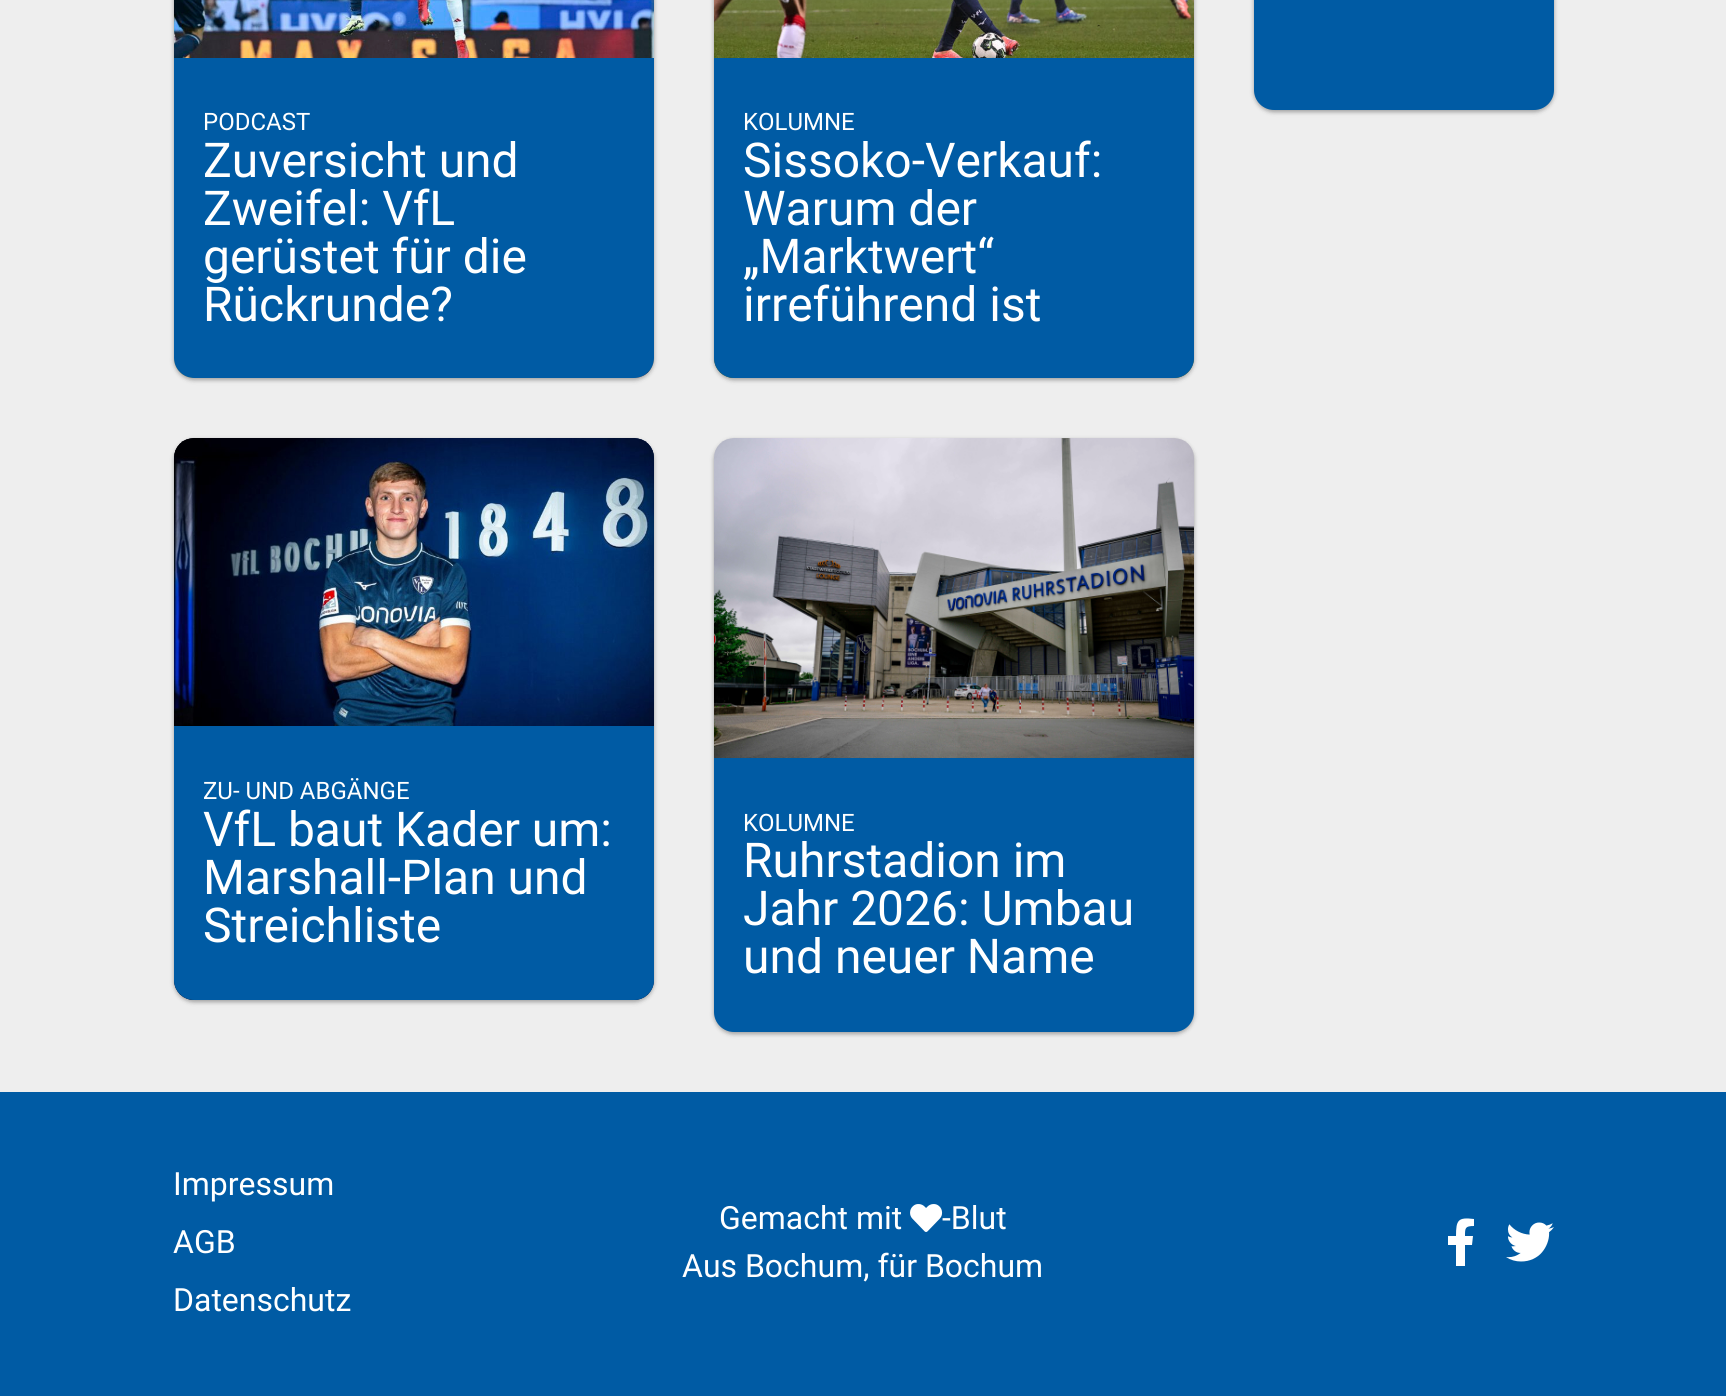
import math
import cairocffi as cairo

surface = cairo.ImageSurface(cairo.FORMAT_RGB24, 1726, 1396)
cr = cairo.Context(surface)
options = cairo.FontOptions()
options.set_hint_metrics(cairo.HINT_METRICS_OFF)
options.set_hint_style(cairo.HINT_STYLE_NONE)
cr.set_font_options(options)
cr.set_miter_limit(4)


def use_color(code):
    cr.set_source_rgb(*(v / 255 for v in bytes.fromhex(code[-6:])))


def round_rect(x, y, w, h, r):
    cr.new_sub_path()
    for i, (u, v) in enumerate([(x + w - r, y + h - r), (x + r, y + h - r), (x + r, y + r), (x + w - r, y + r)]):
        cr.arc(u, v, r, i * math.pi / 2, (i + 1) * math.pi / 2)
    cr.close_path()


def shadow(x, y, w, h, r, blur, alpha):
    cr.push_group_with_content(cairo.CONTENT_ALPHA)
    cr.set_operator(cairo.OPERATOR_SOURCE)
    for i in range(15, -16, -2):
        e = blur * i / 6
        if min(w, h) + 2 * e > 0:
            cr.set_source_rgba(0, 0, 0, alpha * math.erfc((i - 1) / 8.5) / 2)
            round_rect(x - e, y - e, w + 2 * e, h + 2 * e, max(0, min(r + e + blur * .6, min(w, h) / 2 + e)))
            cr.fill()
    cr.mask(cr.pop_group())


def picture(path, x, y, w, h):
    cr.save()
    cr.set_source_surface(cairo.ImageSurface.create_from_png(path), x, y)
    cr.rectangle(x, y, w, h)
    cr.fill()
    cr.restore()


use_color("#eeeeee")
cr.paint()
use_color("#000000")
shadow(1254, -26, 300, 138, 20, 2, 0.24)
shadow(1254, -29, 300, 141, 20, 3, 0.12)
use_color("#005ba4")
round_rect(1254, -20, 300, 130, 20)
cr.fill()
use_color("#000000")
shadow(174, -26, 480, 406, 20, 2, 0.24)
shadow(174, -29, 480, 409, 20, 3, 0.12)
picture("img1.png", 174, 358, 480, 20)
picture("img2.png", 174, 0, 480, 58)
use_color("#005ba4")
cr.new_path()
cr.move_to(174, 58)
cr.line_to(654, 58)
cr.line_to(654, 358)
cr.curve_to(654, 369, 645, 378, 634, 378)
cr.line_to(194, 378)
cr.curve_to(183, 378, 174, 369, 174, 358)
cr.close_path()
cr.fill()
cr.select_font_face("Roboto")
cr.set_font_size(24)
use_color("#ffffff")
cr.move_to(203, 130)
cr.show_text("PODCAST")
cr.set_font_size(48)
cr.move_to(203, 177)
cr.show_text("Zuversicht und")
cr.move_to(203, 225)
cr.show_text("Zweifel: VfL")
cr.move_to(203, 273)
cr.show_text("gerüstet für die")
cr.move_to(203, 321)
cr.show_text("Rückrunde?")
use_color("#000000")
shadow(714, -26, 480, 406, 20, 2, 0.24)
shadow(714, -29, 480, 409, 20, 3, 0.12)
picture("img3.png", 714, 358, 480, 20)
picture("img4.png", 714, 0, 480, 58)
use_color("#005ba4")
cr.new_path()
cr.move_to(714, 58)
cr.line_to(1194, 58)
cr.line_to(1194, 358)
cr.curve_to(1194, 369, 1185, 378, 1174, 378)
cr.line_to(734, 378)
cr.curve_to(723, 378, 714, 369, 714, 358)
cr.close_path()
cr.fill()
cr.set_font_size(24)
use_color("#ffffff")
cr.move_to(743, 130)
cr.show_text("KOLUMNE")
cr.set_font_size(48)
cr.move_to(743, 177)
cr.show_text("Sissoko-Verkauf:")
cr.move_to(743, 225)
cr.show_text("Warum der")
cr.move_to(743, 273)
cr.show_text("„Marktwert“")
cr.move_to(743, 321)
cr.show_text("irreführend ist")
use_color("#000000")
shadow(174, 440, 480, 562, 20, 2, 0.24)
shadow(174, 440, 480, 562, 20, 3, 0.12)
picture("img5.png", 174, 438, 480, 562)
picture("img6.png", 174, 438, 480, 288)
use_color("#005ba4")
cr.new_path()
cr.move_to(174, 726)
cr.line_to(654, 726)
cr.line_to(654, 980)
cr.curve_to(654, 991, 645, 1000, 634, 1000)
cr.line_to(194, 1000)
cr.curve_to(183, 1000, 174, 991, 174, 980)
cr.close_path()
cr.fill()
cr.set_font_size(24)
use_color("#ffffff")
cr.move_to(203, 799)
cr.show_text("ZU- UND ABGÄNGE")
cr.set_font_size(48)
cr.move_to(203, 846)
cr.show_text("VfL baut Kader um:")
cr.move_to(203, 894)
cr.show_text("Marshall-Plan und")
cr.move_to(203, 942)
cr.show_text("Streichliste")
use_color("#000000")
shadow(714, 440, 480, 594, 20, 2, 0.24)
shadow(714, 440, 480, 594, 20, 3, 0.12)
picture("img7.png", 714, 438, 480, 320)
use_color("#005ba4")
cr.new_path()
cr.move_to(714, 758)
cr.line_to(1194, 758)
cr.line_to(1194, 1012)
cr.curve_to(1194, 1023, 1185, 1032, 1174, 1032)
cr.line_to(734, 1032)
cr.curve_to(723, 1032, 714, 1023, 714, 1012)
cr.close_path()
cr.fill()
cr.set_font_size(24)
use_color("#ffffff")
cr.move_to(743, 831)
cr.show_text("KOLUMNE")
cr.set_font_size(48)
cr.move_to(743, 877)
cr.show_text("Ruhrstadion im")
cr.move_to(743, 925)
cr.show_text("Jahr 2026: Umbau")
cr.move_to(743, 973)
cr.show_text("und neuer Name")
use_color("#005ba4")
cr.rectangle(0, 1092, 1726, 304)
cr.fill()
cr.set_font_size(32)
use_color("#ffffff")
cr.move_to(173, 1195)
cr.show_text("Impressum")
cr.move_to(173, 1253)
cr.show_text("AGB")
cr.move_to(173, 1311)
cr.show_text("Datenschutz")
cr.move_to(719, 1229)
cr.show_text("Gemacht mit")
picture("img8.png", 910, 1204, 33, 28)
cr.move_to(942, 1229)
cr.show_text("-Blut")
cr.move_to(682, 1277)
cr.show_text("Aus Bochum, für Bochum")
cr.new_path()
cr.move_to(1472, 1245)
cr.line_to(1465, 1245)
cr.line_to(1465, 1266)
cr.line_to(1456, 1266)
cr.line_to(1456, 1245)
cr.line_to(1448, 1245)
cr.line_to(1448, 1236)
cr.line_to(1456, 1236)
cr.curve_to(1456, 1220, 1458, 1217, 1474, 1219)
cr.line_to(1474, 1226)
cr.curve_to(1465, 1226, 1465, 1228, 1465, 1236)
cr.line_to(1473, 1236)
cr.close_path()
cr.fill()
picture("img9.png", 1506, 1222, 48, 40)
surface.write_to_png("result.png")
